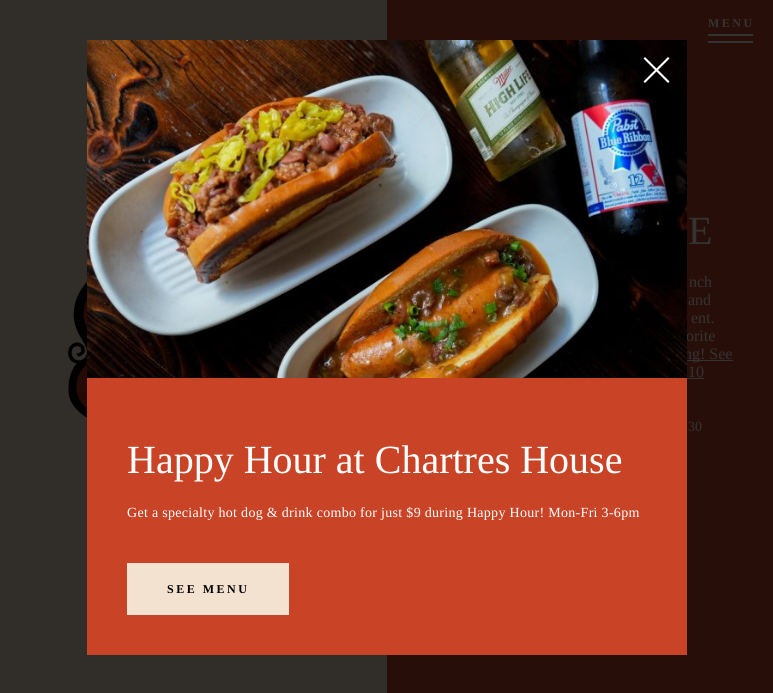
import math
import cairocffi as cairo

surface = cairo.ImageSurface(cairo.FORMAT_RGB24, 773, 693)
cr = cairo.Context(surface)
options = cairo.FontOptions()
options.set_hint_metrics(cairo.HINT_METRICS_OFF)
options.set_hint_style(cairo.HINT_STYLE_NONE)
cr.set_font_options(options)
cr.set_miter_limit(4)


def use_color(code):
    cr.set_source_rgb(*(v / 255 for v in bytes.fromhex(code[-6:])))


def spaced_text(x, y, s, letter, word):
    cr.move_to(x, y)
    for ch in s:
        cr.show_text(ch)
        cr.rel_move_to(letter + word * (ch == ' '), 0)


def picture(path, x, y, w, h):
    cr.save()
    cr.set_source_surface(cairo.ImageSurface.create_from_png(path), x, y)
    cr.rectangle(x, y, w, h)
    cr.fill()
    cr.restore()


use_color("#312d29")
cr.paint()
picture("img1.png", 68, 281, 19, 137)
use_color("#280e08")
cr.rectangle(387, 0, 386, 693)
cr.fill()
cr.select_font_face("Liberation Serif", cairo.FONT_SLANT_NORMAL, cairo.FONT_WEIGHT_BOLD)
cr.set_font_size(12)
use_color("#333333")
spaced_text(708, 27, "MENU", 2.5, 0)
cr.rectangle(708, 34, 45, 2)
cr.fill()
cr.rectangle(708, 41, 45, 2)
cr.fill()
cr.select_font_face("Liberation Serif")
cr.set_font_size(40)
cr.move_to(688, 244)
cr.show_text("E")
cr.set_font_size(16)
cr.move_to(689, 287)
cr.show_text("nch")
cr.move_to(688, 305)
cr.show_text("and")
cr.move_to(691, 323)
cr.show_text("ent.")
cr.move_to(686, 341)
cr.show_text("orite")
cr.rectangle(687, 360, 46, 1)
cr.fill()
cr.move_to(684, 359)
cr.show_text("ng! See")
cr.move_to(688, 377)
cr.show_text("10")
cr.rectangle(687, 378, 17, 1)
cr.fill()
cr.set_font_size(14)
cr.move_to(688, 431)
cr.show_text("30")
picture("img2.png", 87, 40, 600, 338)
use_color("#ffffff")
cr.new_path()
cr.move_to(645, 57)
cr.line_to(669.5, 81.5)
cr.line_to(668, 83)
cr.line_to(643.5, 58.5)
cr.close_path()
cr.fill()
cr.new_path()
cr.move_to(643.5, 81.5)
cr.line_to(668, 57)
cr.line_to(669.5, 58.5)
cr.line_to(645, 83)
cr.close_path()
cr.fill()
use_color("#c94427")
cr.rectangle(87, 378, 600, 277)
cr.fill()
cr.set_font_size(40)
use_color("#ffffff")
cr.move_to(127, 473)
cr.show_text("Happy Hour at Chartres House")
cr.set_font_size(14)
spaced_text(127, 517, "Get a specialty hot dog & drink combo for just $9 during Happy Hour! Mon-Fri 3-6pm", 0.3, 0)
use_color("#f3e2cf")
cr.rectangle(127, 563, 162, 52)
cr.fill()
cr.select_font_face("Liberation Serif", cairo.FONT_SLANT_NORMAL, cairo.FONT_WEIGHT_BOLD)
cr.set_font_size(12)
use_color("#000000")
spaced_text(167, 593, "SEE MENU", 2.5, 0)
surface.write_to_png("result.png")
